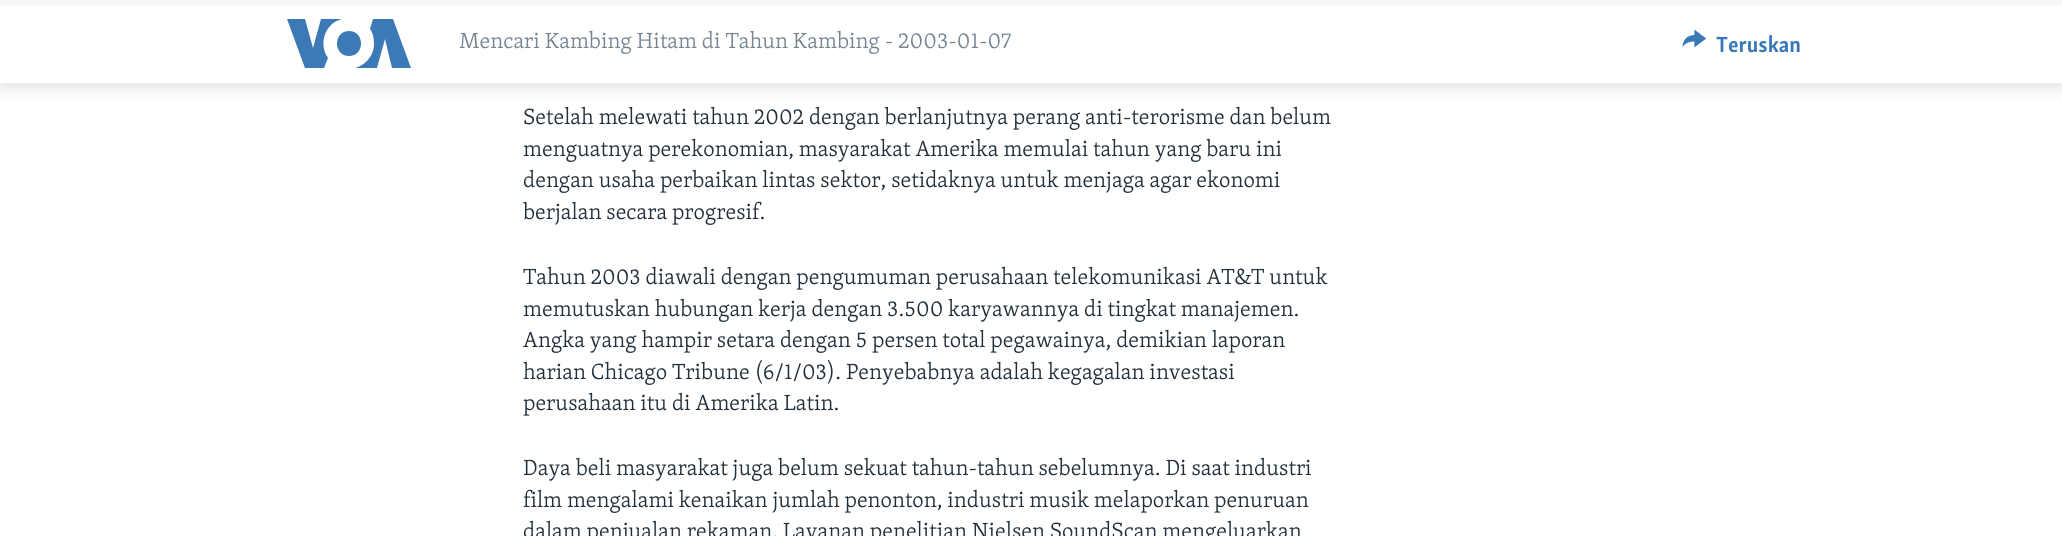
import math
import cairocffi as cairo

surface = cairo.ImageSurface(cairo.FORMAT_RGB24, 2062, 536)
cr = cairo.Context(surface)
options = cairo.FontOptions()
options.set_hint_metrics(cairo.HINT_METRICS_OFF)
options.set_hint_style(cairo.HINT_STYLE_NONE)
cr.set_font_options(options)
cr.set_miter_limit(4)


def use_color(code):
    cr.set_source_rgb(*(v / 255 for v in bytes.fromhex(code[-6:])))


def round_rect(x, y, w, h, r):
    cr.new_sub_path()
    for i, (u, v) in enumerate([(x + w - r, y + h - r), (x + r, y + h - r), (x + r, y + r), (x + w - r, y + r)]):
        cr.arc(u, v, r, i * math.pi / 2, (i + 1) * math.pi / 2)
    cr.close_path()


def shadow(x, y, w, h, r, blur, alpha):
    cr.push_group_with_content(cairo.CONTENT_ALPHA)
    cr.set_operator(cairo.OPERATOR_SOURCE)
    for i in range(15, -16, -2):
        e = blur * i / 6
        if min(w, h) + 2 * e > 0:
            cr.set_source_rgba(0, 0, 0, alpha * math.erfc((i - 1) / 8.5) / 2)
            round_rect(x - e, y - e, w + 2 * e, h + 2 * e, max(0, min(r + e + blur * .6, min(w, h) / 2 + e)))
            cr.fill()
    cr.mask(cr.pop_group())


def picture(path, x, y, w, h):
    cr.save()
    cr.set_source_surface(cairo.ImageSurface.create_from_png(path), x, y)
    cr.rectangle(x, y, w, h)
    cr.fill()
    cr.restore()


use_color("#ffffff")
cr.paint()
use_color("#000000")
shadow(0, 6, 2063, 83, 0, 6, 0.1)
use_color("#ffffff")
cr.rectangle(0, 5, 2062, 78)
cr.fill()
use_color("#f6f7f8")
cr.rectangle(0, 0, 2062, 5)
cr.fill()
use_color("#3b79b7")
cr.new_path()
cr.move_to(328, 58)
cr.line_to(324, 68)
cr.line_to(305, 68)
cr.line_to(287, 19)
cr.line_to(305, 19)
cr.line_to(313, 48)
cr.line_to(321, 19)
cr.line_to(342, 19)
cr.curve_to(325, 23, 318, 44, 328, 58)
cr.close_path()
cr.move_to(349, 31)
cr.curve_to(333, 31, 333, 56, 349, 56)
cr.curve_to(365, 56, 365, 31, 349, 31)
cr.close_path()
cr.move_to(374, 44)
cr.curve_to(374, 55, 366, 65, 355, 68)
cr.line_to(377, 68)
cr.line_to(385, 39)
cr.line_to(392, 68)
cr.line_to(411, 68)
cr.line_to(393, 19)
cr.line_to(373, 19)
cr.line_to(370, 29)
cr.curve_to(373, 33, 374, 38, 374, 44)
cr.close_path()
cr.fill()
cr.select_font_face("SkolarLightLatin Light")
cr.set_font_size(22.5)
use_color("#768492")
cr.move_to(459, 48)
cr.show_text("Mencari Kambing Hitam di Tahun Kambing - 2003-01-07")
picture("img1.png", 1682, 29, 25, 19)
cr.select_font_face("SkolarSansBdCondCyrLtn", cairo.FONT_SLANT_NORMAL, cairo.FONT_WEIGHT_BOLD)
use_color("#3a79b7")
cr.move_to(1716, 52)
cr.show_text("Teruskan")
cr.select_font_face("SkolarLightLatin Light")
use_color("#222f3a")
cr.move_to(523, 124)
cr.show_text("Setelah melewati tahun 2002 dengan berlanjutnya perang anti-terorisme dan belum")
cr.move_to(523, 156)
cr.show_text("menguatnya perekonomian, masyarakat Amerika memulai tahun yang baru ini")
cr.move_to(523, 187)
cr.show_text("dengan usaha perbaikan lintas sektor, setidaknya untuk menjaga agar ekonomi")
cr.move_to(523, 219)
cr.show_text("berjalan secara progresif.")
cr.move_to(523, 284)
cr.show_text("Tahun 2003 diawali dengan pengumuman perusahaan telekomunikasi AT&T untuk")
cr.move_to(523, 316)
cr.show_text("memutuskan hubungan kerja dengan 3.500 karyawannya di tingkat manajemen.")
cr.move_to(523, 347)
cr.show_text("Angka yang hampir setara dengan 5 persen total pegawainya, demikian laporan")
cr.move_to(523, 379)
cr.show_text("harian Chicago Tribune (6/1/03). Penyebabnya adalah kegagalan investasi")
cr.move_to(523, 410)
cr.show_text("perusahaan itu di Amerika Latin.")
cr.move_to(523, 475)
cr.show_text("Daya beli masyarakat juga belum sekuat tahun-tahun sebelumnya. Di saat industri")
cr.move_to(523, 507)
cr.show_text("film mengalami kenaikan jumlah penonton, industri musik melaporkan penuruan")
cr.move_to(523, 538)
cr.show_text("dalam penjualan rekaman. Layanan penelitian Nielsen SoundScan mengeluarkan")
surface.write_to_png("result.png")
